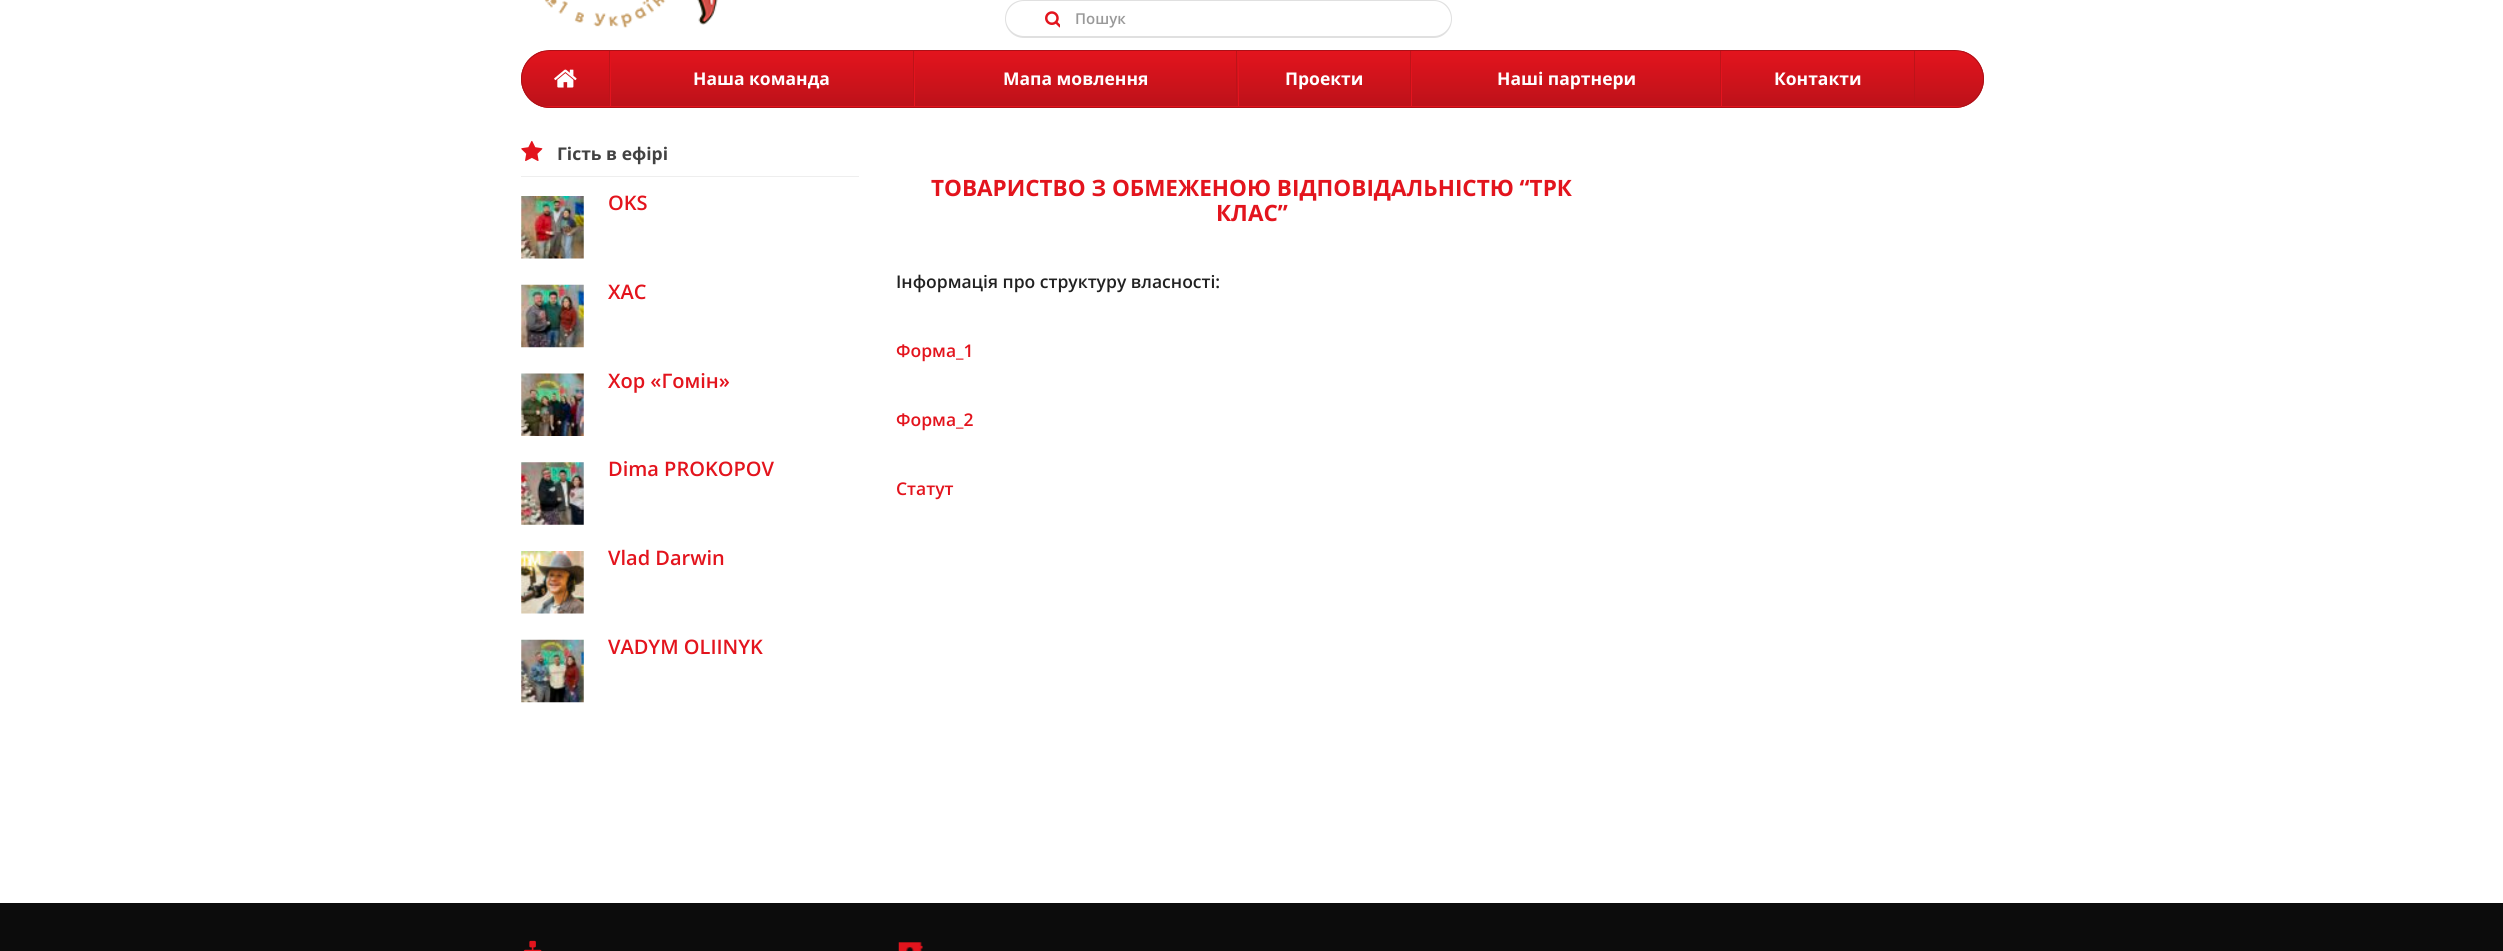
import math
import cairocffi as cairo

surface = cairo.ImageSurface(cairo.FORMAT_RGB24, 2503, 951)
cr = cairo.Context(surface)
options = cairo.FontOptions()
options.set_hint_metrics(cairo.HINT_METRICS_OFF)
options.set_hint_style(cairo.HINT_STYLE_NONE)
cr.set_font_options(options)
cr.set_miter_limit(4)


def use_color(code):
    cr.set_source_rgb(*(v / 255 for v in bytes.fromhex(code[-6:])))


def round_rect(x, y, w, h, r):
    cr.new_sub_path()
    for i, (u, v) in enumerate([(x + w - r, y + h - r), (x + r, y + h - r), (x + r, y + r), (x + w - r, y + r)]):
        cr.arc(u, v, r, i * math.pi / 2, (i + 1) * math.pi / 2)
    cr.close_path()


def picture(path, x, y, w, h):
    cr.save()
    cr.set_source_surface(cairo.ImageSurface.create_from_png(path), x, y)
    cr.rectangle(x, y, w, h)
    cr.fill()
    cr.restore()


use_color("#ffffff")
cr.paint()
picture("img1.png", 544, 0, 174, 28)
use_color("#e0e0e0")
cr.set_fill_rule(cairo.FILL_RULE_EVEN_ODD)
cr.new_path()
cr.move_to(1024, 0)
cr.line_to(1061, 0)
cr.line_to(1061, 38)
cr.line_to(1024, 38)
cr.curve_to(1013, 38, 1005, 29, 1005, 19)
cr.curve_to(1005, 8, 1013, 0, 1024, 0)
cr.close_path()
cr.move_to(1024, 1)
cr.line_to(1061, 1)
cr.line_to(1061, 36)
cr.line_to(1024, 36)
cr.curve_to(1014, 36, 1006, 28, 1006, 19)
cr.curve_to(1006, 9, 1014, 1, 1024, 1)
cr.close_path()
cr.fill()
picture("img2.png", 1045, 11, 15, 17)
use_color("#ffffff")
cr.new_path()
cr.move_to(1060, 0)
cr.line_to(1434, 0)
cr.curve_to(1444.5, 0, 1453, 8.5, 1453, 19)
cr.curve_to(1453, 29.5, 1444.5, 38, 1434, 38)
cr.line_to(1060, 38)
cr.close_path()
cr.fill()
use_color("#e0e0e0")
cr.new_path()
cr.move_to(1060, 0)
cr.line_to(1434, 0)
cr.curve_to(1444, 0, 1452, 8, 1452, 19)
cr.curve_to(1452, 29, 1444, 38, 1434, 38)
cr.line_to(1060, 38)
cr.close_path()
cr.move_to(1060, 1)
cr.line_to(1434, 1)
cr.curve_to(1443, 1, 1451, 9, 1451, 19)
cr.curve_to(1451, 28, 1443, 36, 1434, 36)
cr.line_to(1060, 36)
cr.close_path()
cr.fill()
cr.select_font_face("Open Sans SemiBold")
cr.set_font_size(15)
use_color("#999999")
cr.move_to(1075, 24)
cr.show_text("Пошук")
cr.save()
cr.set_fill_rule(cairo.FILL_RULE_WINDING)
round_rect(521, 50, 1463, 58, 29)
cr.clip()
gradient = cairo.LinearGradient(1253, 51, 1253, 106)
gradient.add_color_stop_rgba(0, 0.89, 0.078, 0.114, 1)
gradient.add_color_stop_rgba(1, 0.741, 0.071, 0.102, 1)
cr.set_source(gradient)
cr.rectangle(521, 51, 1463, 55)
cr.fill()
gradient = cairo.LinearGradient(1253, 106, 1253, 161)
gradient.add_color_stop_rgba(0, 0.89, 0.078, 0.114, 1)
gradient.add_color_stop_rgba(1, 0.741, 0.071, 0.102, 1)
cr.set_source(gradient)
cr.rectangle(539, 106, 1427, 2)
cr.fill()
cr.restore()
round_rect(521.5, 50.5, 1462, 57, 28.5)
use_color("#ac1017")
cr.set_line_width(1)
cr.stroke()
picture("img3.png", 554, 69, 23, 19)
gradient = cairo.LinearGradient(609, 51, 609, 106)
gradient.add_color_stop_rgba(0, 0.741, 0.078, 0.098, 1)
gradient.add_color_stop_rgba(1, 0.737, 0.075, 0.102, 1)
cr.set_source(gradient)
cr.rectangle(609, 51, 1, 55)
cr.fill()
gradient = cairo.LinearGradient(611, 51, 611, 106)
gradient.add_color_stop_rgba(0, 0.886, 0.075, 0.114, 1)
gradient.add_color_stop_rgba(1, 0.902, 0.078, 0.122, 1)
cr.set_source(gradient)
cr.rectangle(610, 51, 1, 55)
cr.fill()
cr.select_font_face("Open Sans", cairo.FONT_SLANT_NORMAL, cairo.FONT_WEIGHT_BOLD)
cr.set_font_size(17.5)
use_color("#ffffff")
cr.move_to(693, 85)
cr.show_text("Наша команда")
gradient = cairo.LinearGradient(913, 51, 913, 106)
gradient.add_color_stop_rgba(0, 0.741, 0.078, 0.098, 1)
gradient.add_color_stop_rgba(1, 0.737, 0.075, 0.102, 1)
cr.set_source(gradient)
cr.rectangle(913, 51, 1, 55)
cr.fill()
gradient = cairo.LinearGradient(914, 51, 914, 106)
gradient.add_color_stop_rgba(0, 0.886, 0.075, 0.114, 1)
gradient.add_color_stop_rgba(1, 0.902, 0.078, 0.122, 1)
cr.set_source(gradient)
cr.rectangle(914, 51, 1, 55)
cr.fill()
use_color("#ffffff")
cr.move_to(1003, 85)
cr.show_text("Мапа мовлення")
gradient = cairo.LinearGradient(1237, 51, 1237, 106)
gradient.add_color_stop_rgba(0, 0.741, 0.078, 0.098, 1)
gradient.add_color_stop_rgba(1, 0.737, 0.075, 0.102, 1)
cr.set_source(gradient)
cr.rectangle(1236, 51, 1, 55)
cr.fill()
gradient = cairo.LinearGradient(1238, 51, 1238, 106)
gradient.add_color_stop_rgba(0, 0.886, 0.075, 0.114, 1)
gradient.add_color_stop_rgba(1, 0.902, 0.078, 0.122, 1)
cr.set_source(gradient)
cr.rectangle(1238, 51, 1, 55)
cr.fill()
use_color("#ffffff")
cr.move_to(1285, 85)
cr.show_text("Проекти")
gradient = cairo.LinearGradient(1411, 51, 1411, 106)
gradient.add_color_stop_rgba(0, 0.741, 0.078, 0.098, 1)
gradient.add_color_stop_rgba(1, 0.737, 0.075, 0.102, 1)
cr.set_source(gradient)
cr.rectangle(1410, 51, 1, 55)
cr.fill()
gradient = cairo.LinearGradient(1412, 51, 1412, 106)
gradient.add_color_stop_rgba(0, 0.886, 0.075, 0.114, 1)
gradient.add_color_stop_rgba(1, 0.902, 0.078, 0.122, 1)
cr.set_source(gradient)
cr.rectangle(1411, 51, 1, 55)
cr.fill()
use_color("#ffffff")
cr.move_to(1497, 85)
cr.show_text("Наші партнери")
gradient = cairo.LinearGradient(1721, 51, 1721, 106)
gradient.add_color_stop_rgba(0, 0.741, 0.078, 0.098, 1)
gradient.add_color_stop_rgba(1, 0.737, 0.075, 0.102, 1)
cr.set_source(gradient)
cr.rectangle(1720, 51, 1, 55)
cr.fill()
gradient = cairo.LinearGradient(1722, 51, 1722, 106)
gradient.add_color_stop_rgba(0, 0.886, 0.075, 0.114, 1)
gradient.add_color_stop_rgba(1, 0.902, 0.078, 0.122, 1)
cr.set_source(gradient)
cr.rectangle(1721, 51, 1, 55)
cr.fill()
use_color("#ffffff")
cr.move_to(1774, 85)
cr.show_text("Контакти")
gradient = cairo.LinearGradient(1914, 51, 1914, 106)
gradient.add_color_stop_rgba(0, 0.741, 0.078, 0.098, 1)
gradient.add_color_stop_rgba(1, 0.737, 0.075, 0.102, 1)
cr.set_source(gradient)
cr.rectangle(1914, 51, 1, 55)
cr.fill()
use_color("#eeeeee")
cr.rectangle(521, 176, 338, 1)
cr.fill()
picture("img4.png", 521, 140, 22, 21)
use_color("#424242")
cr.move_to(557, 160)
cr.show_text("Гість в ефірі")
picture("img5.png", 521, 196, 63, 63)
cr.select_font_face("Open Sans SemiBold")
cr.set_font_size(20)
use_color("#e3141d")
cr.move_to(608, 210)
cr.show_text("OKS")
picture("img6.png", 521, 284, 63, 64)
cr.move_to(608, 299)
cr.show_text("ХАС")
picture("img7.png", 521, 373, 63, 63)
cr.move_to(608, 388)
cr.show_text("Хор «Гомін»")
picture("img8.png", 521, 462, 63, 63)
cr.move_to(608, 476)
cr.show_text("Dima PROKOPOV")
picture("img9.png", 521, 551, 63, 63)
cr.move_to(608, 565)
cr.show_text("Vlad Darwin")
picture("img10.png", 521, 639, 63, 64)
cr.move_to(608, 654)
cr.show_text("VADYM OLIINYK")
cr.select_font_face("Open Sans", cairo.FONT_SLANT_NORMAL, cairo.FONT_WEIGHT_BOLD)
cr.set_font_size(22.5)
cr.move_to(931, 196)
cr.show_text("ТОВАРИСТВО З ОБМЕЖЕНОЮ ВIДПОВIДАЛЬНIСТЮ “ТРК")
cr.move_to(1216, 221)
cr.show_text("КЛАС”")
cr.select_font_face("Open Sans SemiBold")
cr.set_font_size(17.5)
use_color("#212121")
cr.move_to(896, 288)
cr.show_text("Інформація про структуру власності:")
use_color("#e3141d")
cr.move_to(896, 357)
cr.show_text("Форма_1")
cr.move_to(896, 426)
cr.show_text("Форма_2")
cr.move_to(896, 495)
cr.show_text("Статут")
use_color("#0c0c0c")
cr.rectangle(0, 903, 2503, 48)
cr.fill()
picture("img11.png", 523, 940, 19, 11)
picture("img12.png", 898, 942, 25, 9)
surface.write_to_png("result.png")
